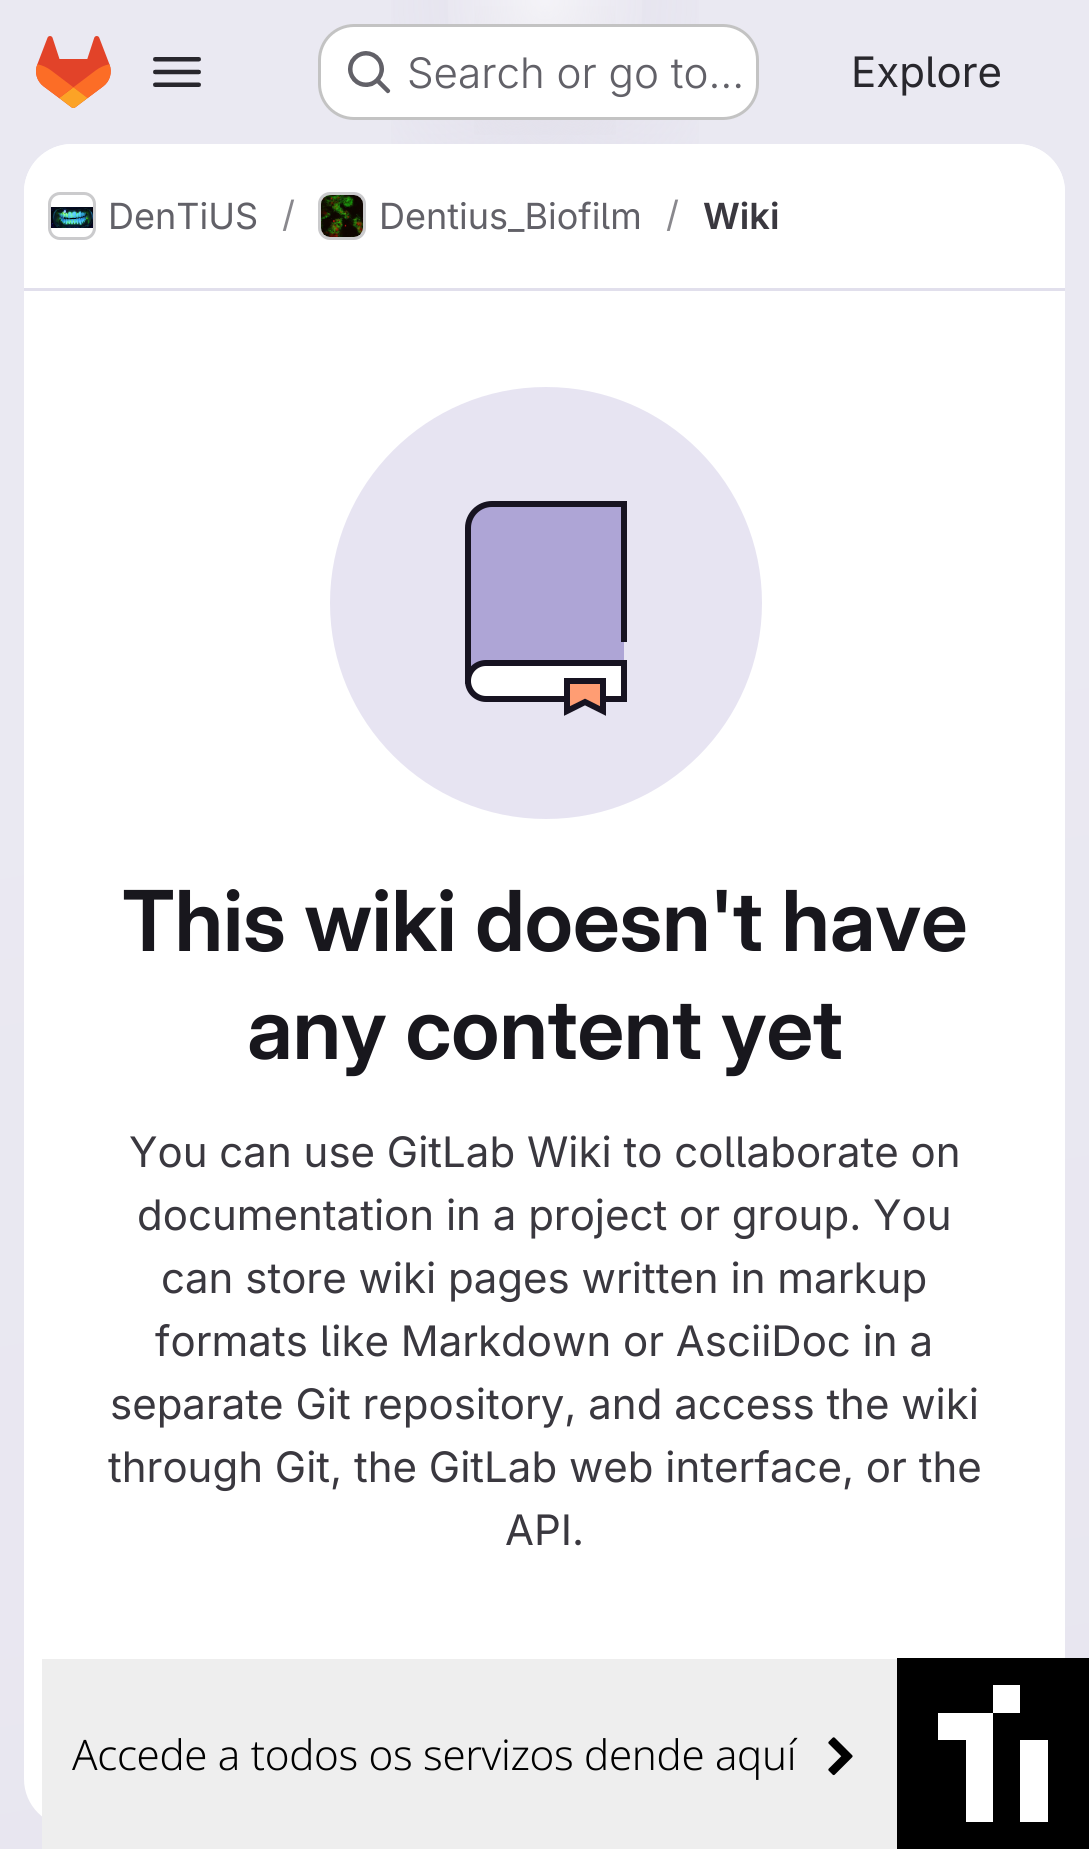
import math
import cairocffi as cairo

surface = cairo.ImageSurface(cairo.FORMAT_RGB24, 1089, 1849)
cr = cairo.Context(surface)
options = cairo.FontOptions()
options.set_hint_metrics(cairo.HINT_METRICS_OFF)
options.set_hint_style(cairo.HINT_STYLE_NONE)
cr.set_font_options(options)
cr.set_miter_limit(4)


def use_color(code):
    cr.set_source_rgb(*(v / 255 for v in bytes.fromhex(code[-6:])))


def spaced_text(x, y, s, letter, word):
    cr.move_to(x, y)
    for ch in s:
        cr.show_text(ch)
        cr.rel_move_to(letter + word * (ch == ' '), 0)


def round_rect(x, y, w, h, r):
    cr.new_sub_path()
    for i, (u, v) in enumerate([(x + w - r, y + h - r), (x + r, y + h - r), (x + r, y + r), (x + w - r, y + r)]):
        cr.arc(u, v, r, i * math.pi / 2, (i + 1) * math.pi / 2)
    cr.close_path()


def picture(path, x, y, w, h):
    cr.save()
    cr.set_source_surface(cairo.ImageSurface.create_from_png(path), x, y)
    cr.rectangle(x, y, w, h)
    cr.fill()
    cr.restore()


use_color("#ffffff")
cr.paint()
gradient = cairo.LinearGradient(719, 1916, 370, -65)
gradient.add_color_stop_rgba(0, 0.91, 0.902, 0.941, 1)
gradient.add_color_stop_rgba(0.7, 0.918, 0.914, 0.949, 1)
cr.set_source(gradient)
cr.rectangle(0, 0, 1089, 1849)
cr.fill()
gradient = cairo.RadialGradient(0, 0, 0, 0, 0, 1)
gradient.set_matrix(cairo.Matrix(1 / 545, 0, 0, 1 / 1851, -1 * 545 / 545, -1 * 0 / 1851))
gradient.add_color_stop_rgba(0, 0.894, 0.886, 0.929, 1)
gradient.add_color_stop_rgba(0.39, 0.894, 0.886, 0.929, 0)
cr.set_source(gradient)
cr.rectangle(391, 0, 308, 144)
cr.fill()
gradient = cairo.RadialGradient(0, 0, 0, 0, 0, 1)
gradient.set_matrix(cairo.Matrix(1 / 545, 0, 0, 1 / 1851, -1 * 545 / 545, -1 * 0 / 1851))
gradient.add_color_stop_rgba(0, 0.894, 0.886, 0.925, 1)
gradient.add_color_stop_rgba(0.28, 0.894, 0.886, 0.925, 0)
cr.set_source(gradient)
cr.rectangle(474, 6, 142, 129)
cr.fill()
gradient = cairo.RadialGradient(545, 0, 0, 545, 0, 1929)
gradient.add_color_stop_rgba(0, 1, 1, 1, 0.6)
gradient.add_color_stop_rgba(0.06, 1, 1, 1, 0)
cr.set_source(gradient)
cr.rectangle(448, 0, 194, 24)
cr.fill()
picture("img1.png", 36, 36, 75, 72)
picture("img2.png", 153, 57, 48, 30)
use_color("#ffffff")
round_rect(318, 24, 441, 96, 36)
cr.fill()
round_rect(319.5, 25.5, 438, 93, 34.5)
cr.set_source_rgba(0.02, 0.02, 0.024, 0.24)
cr.set_line_width(3)
cr.stroke()
picture("img3.png", 348, 51, 43, 43)
cr.select_font_face("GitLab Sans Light")
cr.set_font_size(42)
use_color("#626168")
cr.move_to(407, 88)
cr.show_text("Search or go to…")
cr.select_font_face("GitLab Sans")
use_color("#28272d")
cr.move_to(851, 87)
cr.show_text("Explore")
use_color("#ffffff")
round_rect(24, 144, 1041, 1683, 48)
cr.fill()
cr.new_path()
cr.move_to(72, 144)
cr.line_to(1017, 144)
cr.curve_to(1043.5, 144, 1065, 165.5, 1065, 192)
cr.line_to(1065, 291)
cr.line_to(24, 291)
cr.line_to(24, 192)
cr.curve_to(24, 165.5, 45.5, 144, 72, 144)
cr.close_path()
cr.fill()
use_color("#e1dfec")
cr.rectangle(24, 288, 1041, 3)
cr.fill()
round_rect(49.5, 193.5, 45, 45, 10.5)
use_color("#dcdcde")
cr.stroke()
picture("img4.png", 51, 207, 42, 21)
round_rect(49.5, 193.5, 45, 45, 10.5)
cr.set_source_rgba(0.02, 0.02, 0.024, 0.08)
cr.stroke()
cr.set_font_size(36)
use_color("#626168")
cr.move_to(108, 229)
cr.show_text("DenTiUS")
use_color("#89888d")
cr.move_to(282, 227)
cr.show_text("/")
round_rect(319.5, 193.5, 45, 45, 10.5)
use_color("#dcdcde")
cr.stroke()
picture("img5.png", 321, 195, 42, 42)
round_rect(319.5, 193.5, 45, 45, 10.5)
cr.set_source_rgba(0.02, 0.02, 0.024, 0.08)
cr.stroke()
use_color("#626168")
cr.move_to(379, 229)
cr.show_text("Dentius_Biofilm")
use_color("#89888d")
cr.move_to(666, 227)
cr.show_text("/")
cr.select_font_face("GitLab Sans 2 SemiBold")
use_color("#3a383f")
cr.move_to(703, 229)
cr.show_text("Wiki")
picture("img6.png", 330, 387, 432, 432)
cr.select_font_face("GitLab Sans SemiBold")
cr.set_font_size(84)
use_color("#18171d")
cr.move_to(122, 951)
cr.show_text("This wiki doesn't have")
cr.move_to(247, 1059)
cr.show_text("any content yet")
cr.select_font_face("GitLab Sans")
cr.set_font_size(42)
use_color("#3a383f")
cr.move_to(129, 1167)
cr.show_text("You can use GitLab Wiki to collaborate on")
cr.move_to(137, 1230)
cr.show_text("documentation in a project or group. You")
cr.move_to(161, 1293)
cr.show_text("can store wiki pages written in markup")
cr.move_to(155, 1356)
cr.show_text("formats like Markdown or AsciiDoc in a")
cr.move_to(110, 1419)
cr.show_text("separate Git repository, and access the wiki")
cr.move_to(108, 1482)
cr.show_text("through Git, the GitLab web interface, or the")
cr.move_to(505, 1545)
cr.show_text("API.")
use_color("#eeeeee")
cr.rectangle(42, 1659, 855, 190)
cr.fill()
cr.select_font_face("Noto Sans Light")
use_color("#000000")
spaced_text(72, 1770, "Accede a todos os servizos dende aquí", -0.3, 0)
picture("img7.png", 828, 1737, 25, 39)
use_color("#ffffff")
cr.rectangle(1038, 1816, 10, 6)
cr.fill()
use_color("#000000")
cr.new_path()
cr.move_to(897, 1754)
cr.line_to(897, 1658)
cr.line_to(1089, 1658)
cr.line_to(1089, 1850)
cr.line_to(897, 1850)
cr.close_path()
cr.move_to(993, 1767)
cr.line_to(993, 1713)
cr.line_to(1020, 1713)
cr.line_to(1020, 1685)
cr.line_to(993, 1685)
cr.line_to(993, 1713)
cr.line_to(938, 1713)
cr.line_to(938, 1740)
cr.line_to(966, 1740)
cr.line_to(966, 1822)
cr.line_to(993, 1822)
cr.close_path()
cr.move_to(1048, 1781)
cr.line_to(1048, 1740)
cr.line_to(1020, 1740)
cr.line_to(1020, 1822)
cr.line_to(1048, 1822)
cr.close_path()
cr.fill()
surface.write_to_png("result.png")
